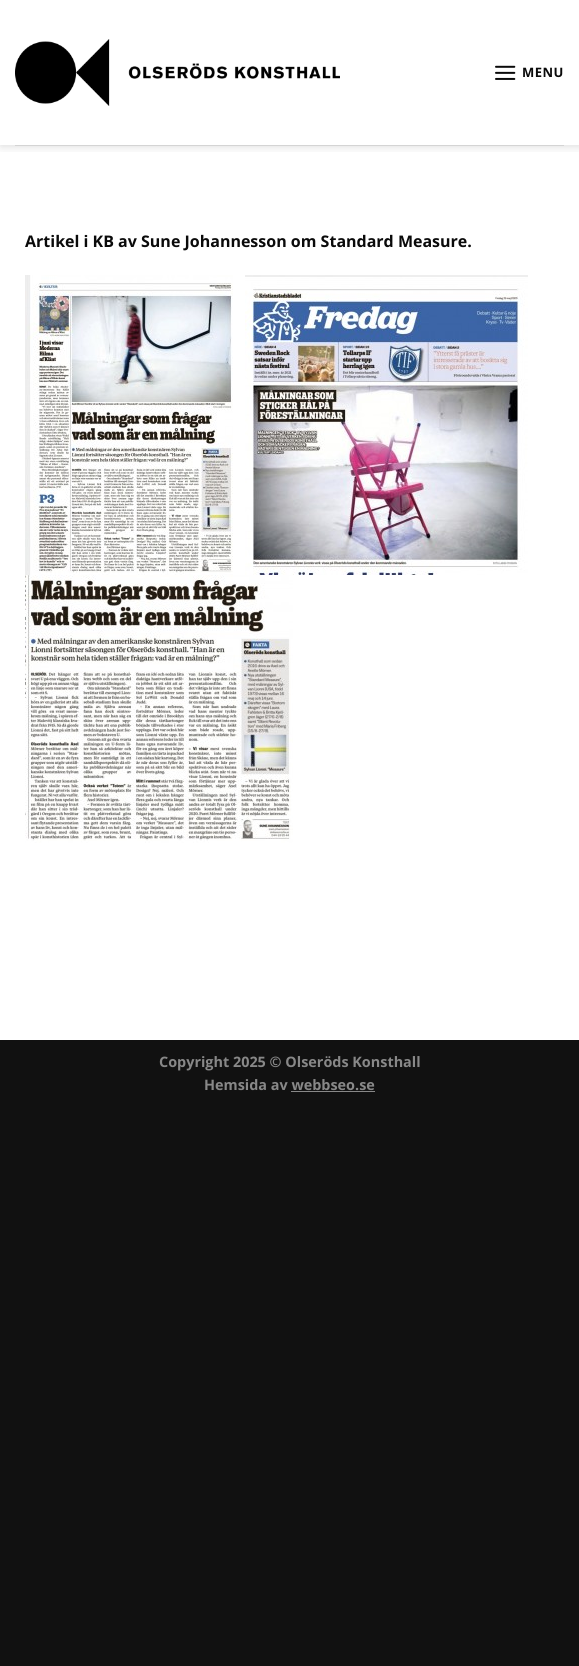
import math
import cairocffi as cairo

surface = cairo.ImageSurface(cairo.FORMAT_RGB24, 579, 1666)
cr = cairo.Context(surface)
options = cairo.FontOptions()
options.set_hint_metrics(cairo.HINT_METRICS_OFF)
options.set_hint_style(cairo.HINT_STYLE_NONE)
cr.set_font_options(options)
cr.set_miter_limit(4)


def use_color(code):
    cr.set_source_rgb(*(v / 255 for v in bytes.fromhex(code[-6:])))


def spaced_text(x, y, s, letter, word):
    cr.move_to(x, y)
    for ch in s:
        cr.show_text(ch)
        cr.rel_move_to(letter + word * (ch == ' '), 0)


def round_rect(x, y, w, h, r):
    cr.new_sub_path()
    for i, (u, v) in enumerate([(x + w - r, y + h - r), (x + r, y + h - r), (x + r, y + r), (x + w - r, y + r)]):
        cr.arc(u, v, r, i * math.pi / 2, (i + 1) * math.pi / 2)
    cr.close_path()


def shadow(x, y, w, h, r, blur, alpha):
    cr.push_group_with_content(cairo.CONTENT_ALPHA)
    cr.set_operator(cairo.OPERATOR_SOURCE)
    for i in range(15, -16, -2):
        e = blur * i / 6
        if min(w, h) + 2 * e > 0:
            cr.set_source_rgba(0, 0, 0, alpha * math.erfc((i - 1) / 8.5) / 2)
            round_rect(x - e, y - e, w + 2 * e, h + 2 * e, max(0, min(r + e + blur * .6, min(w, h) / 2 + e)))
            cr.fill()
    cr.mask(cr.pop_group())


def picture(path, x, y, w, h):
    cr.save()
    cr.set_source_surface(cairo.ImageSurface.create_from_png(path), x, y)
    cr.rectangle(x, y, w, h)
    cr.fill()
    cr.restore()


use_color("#111111")
cr.paint()
use_color("#ffffff")
cr.rectangle(0, 0, 579, 1040)
cr.fill()
cr.save()
cr.rectangle(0, 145, 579, 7)
cr.clip()
use_color("#000000")
shadow(1, 1, 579, 145, 0, 5, 0.15)
cr.restore()
picture("img1.png", 15, 39, 325, 67)
picture("img2.png", 495, 65, 21, 15)
cr.select_font_face("Open Sans", cairo.FONT_SLANT_NORMAL, cairo.FONT_WEIGHT_BOLD)
cr.set_font_size(13)
use_color("#0a0a0a")
spaced_text(522, 77, "MENU", 0.5, 0)
use_color("#d4d4d4")
cr.rectangle(15, 145, 549, 1)
cr.fill()
cr.set_font_size(16)
use_color("#0a0a0a")
cr.move_to(25, 247)
cr.show_text("Artikel i KB av Sune Johannesson om Standard Measure.")
picture("img3.png", 25, 275, 208, 300)
picture("img4.png", 245, 275, 283, 300)
picture("img5.png", 25, 575, 268, 268)
cr.set_font_size(14.4)
use_color("#888888")
cr.move_to(159, 1067)
cr.show_text("Copyright 2025 © Olseröds Konsthall")
cr.move_to(204, 1090)
cr.show_text("Hemsida av webbseo.se")
cr.rectangle(291, 1091, 84, 1)
cr.fill()
surface.write_to_png("result.png")
